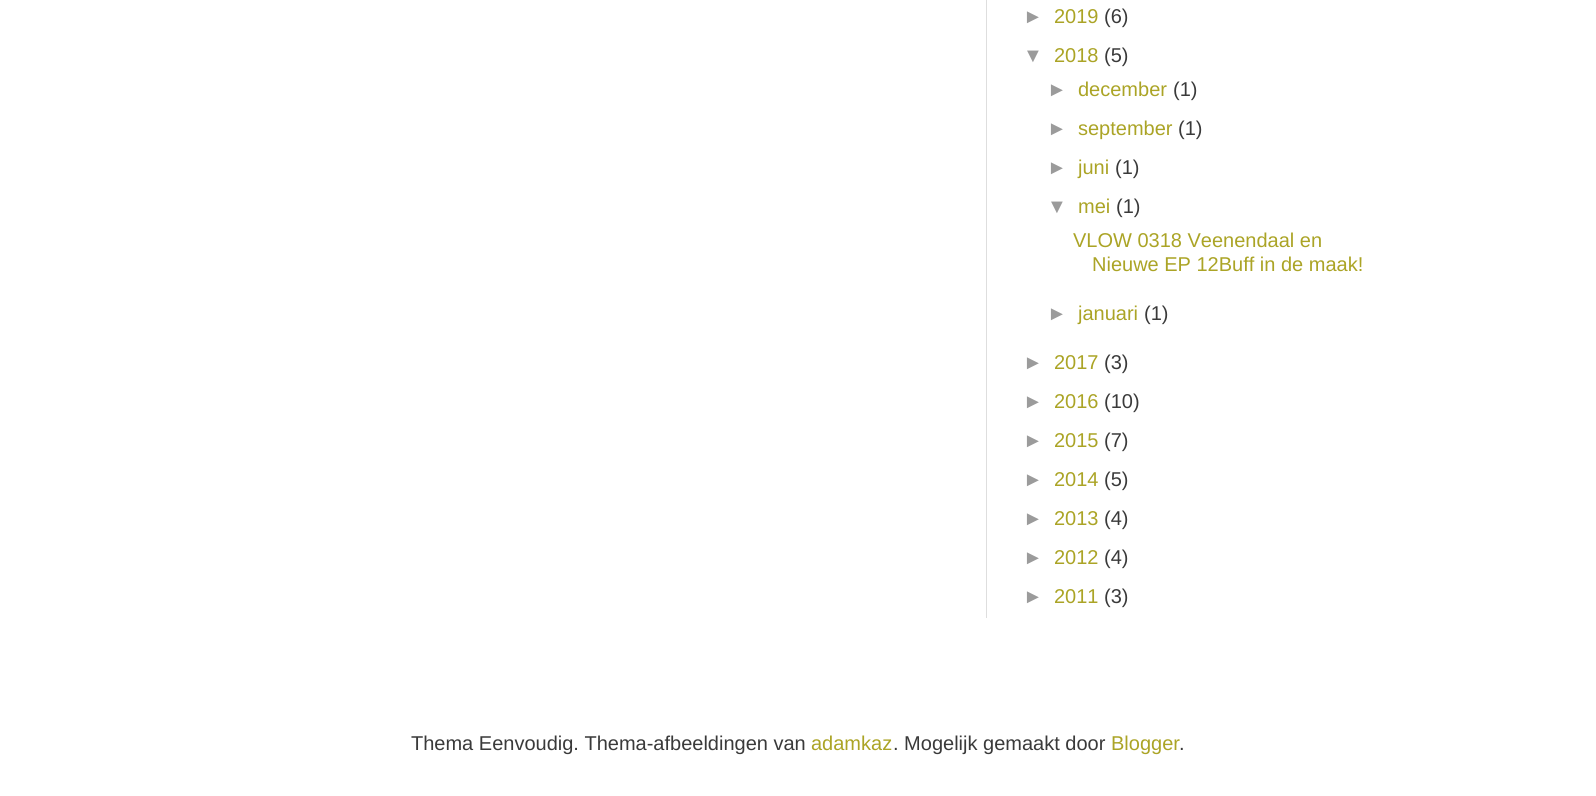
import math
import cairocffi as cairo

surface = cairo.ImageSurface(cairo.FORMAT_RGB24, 1596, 796)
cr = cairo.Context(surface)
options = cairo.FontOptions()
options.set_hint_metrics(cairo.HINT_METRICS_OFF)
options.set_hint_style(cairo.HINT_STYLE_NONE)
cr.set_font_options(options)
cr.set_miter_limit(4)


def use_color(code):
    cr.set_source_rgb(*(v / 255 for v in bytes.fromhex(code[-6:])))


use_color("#ffffff")
cr.paint()
use_color("#dedede")
cr.rectangle(986, 0, 1, 618)
cr.fill()
cr.select_font_face("Liberation Sans")
cr.set_font_size(20)
use_color("#9b9b9b")
cr.move_to(1023, 23)
cr.show_text("►")
use_color("#aba426")
cr.move_to(1054, 23)
cr.show_text("2019")
use_color("#3a3a3a")
cr.move_to(1104, 23)
cr.show_text("(6)")
use_color("#9b9b9b")
cr.move_to(1023, 62)
cr.show_text("▼")
use_color("#aba426")
cr.move_to(1054, 62)
cr.show_text("2018")
use_color("#3a3a3a")
cr.move_to(1104, 62)
cr.show_text("(5)")
use_color("#9b9b9b")
cr.move_to(1047, 96)
cr.show_text("►")
use_color("#aba426")
cr.move_to(1078, 96)
cr.show_text("december")
use_color("#3a3a3a")
cr.move_to(1173, 96)
cr.show_text("(1)")
use_color("#9b9b9b")
cr.move_to(1047, 135)
cr.show_text("►")
use_color("#aba426")
cr.move_to(1078, 135)
cr.show_text("september")
use_color("#3a3a3a")
cr.move_to(1178, 135)
cr.show_text("(1)")
use_color("#9b9b9b")
cr.move_to(1047, 174)
cr.show_text("►")
use_color("#aba426")
cr.move_to(1078, 174)
cr.show_text("juni")
use_color("#3a3a3a")
cr.move_to(1115, 174)
cr.show_text("(1)")
use_color("#9b9b9b")
cr.move_to(1047, 213)
cr.show_text("▼")
use_color("#aba426")
cr.move_to(1078, 213)
cr.show_text("mei")
use_color("#3a3a3a")
cr.move_to(1116, 213)
cr.show_text("(1)")
use_color("#aba426")
cr.move_to(1073, 247)
cr.show_text("VLOW 0318 Veenendaal en")
cr.move_to(1092, 271)
cr.show_text("Nieuwe EP 12Buff in de maak!")
use_color("#9b9b9b")
cr.move_to(1047, 320)
cr.show_text("►")
use_color("#aba426")
cr.move_to(1078, 320)
cr.show_text("januari")
use_color("#3a3a3a")
cr.move_to(1144, 320)
cr.show_text("(1)")
use_color("#9b9b9b")
cr.move_to(1023, 369)
cr.show_text("►")
use_color("#aba426")
cr.move_to(1054, 369)
cr.show_text("2017")
use_color("#3a3a3a")
cr.move_to(1104, 369)
cr.show_text("(3)")
use_color("#9b9b9b")
cr.move_to(1023, 408)
cr.show_text("►")
use_color("#aba426")
cr.move_to(1054, 408)
cr.show_text("2016")
use_color("#3a3a3a")
cr.move_to(1104, 408)
cr.show_text("(10)")
use_color("#9b9b9b")
cr.move_to(1023, 447)
cr.show_text("►")
use_color("#aba426")
cr.move_to(1054, 447)
cr.show_text("2015")
use_color("#3a3a3a")
cr.move_to(1104, 447)
cr.show_text("(7)")
use_color("#9b9b9b")
cr.move_to(1023, 486)
cr.show_text("►")
use_color("#aba426")
cr.move_to(1054, 486)
cr.show_text("2014")
use_color("#3a3a3a")
cr.move_to(1104, 486)
cr.show_text("(5)")
use_color("#9b9b9b")
cr.move_to(1023, 525)
cr.show_text("►")
use_color("#aba426")
cr.move_to(1054, 525)
cr.show_text("2013")
use_color("#3a3a3a")
cr.move_to(1104, 525)
cr.show_text("(4)")
use_color("#9b9b9b")
cr.move_to(1023, 564)
cr.show_text("►")
use_color("#aba426")
cr.move_to(1054, 564)
cr.show_text("2012")
use_color("#3a3a3a")
cr.move_to(1104, 564)
cr.show_text("(4)")
use_color("#9b9b9b")
cr.move_to(1023, 603)
cr.show_text("►")
use_color("#aba426")
cr.move_to(1054, 603)
cr.show_text("2011")
use_color("#3a3a3a")
cr.move_to(1104, 603)
cr.show_text("(3)")
cr.move_to(411, 750)
cr.show_text("Thema Eenvoudig. Thema-afbeeldingen van")
use_color("#aba426")
cr.move_to(811, 750)
cr.show_text("adamkaz")
use_color("#3a3a3a")
cr.move_to(893, 750)
cr.show_text(". Mogelijk gemaakt door")
use_color("#aba426")
cr.move_to(1111, 750)
cr.show_text("Blogger")
use_color("#3a3a3a")
cr.move_to(1179, 750)
cr.show_text(".")
surface.write_to_png("result.png")
